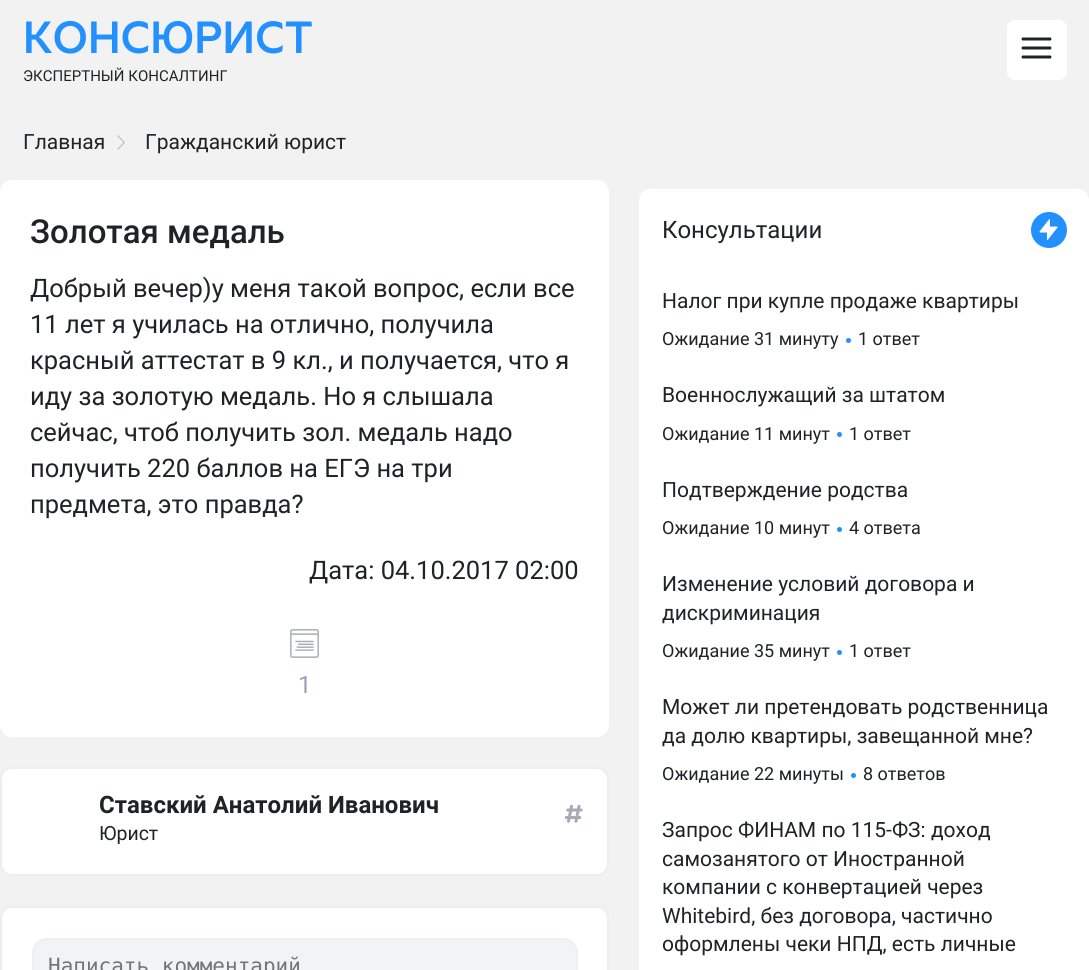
import math
import cairocffi as cairo

surface = cairo.ImageSurface(cairo.FORMAT_RGB24, 1089, 970)
cr = cairo.Context(surface)
options = cairo.FontOptions()
options.set_hint_metrics(cairo.HINT_METRICS_OFF)
options.set_hint_style(cairo.HINT_STYLE_NONE)
cr.set_font_options(options)
cr.set_miter_limit(4)


def use_color(code):
    cr.set_source_rgb(*(v / 255 for v in bytes.fromhex(code[-6:])))


def round_rect(x, y, w, h, r):
    cr.new_sub_path()
    for i, (u, v) in enumerate([(x + w - r, y + h - r), (x + r, y + h - r), (x + r, y + r), (x + w - r, y + r)]):
        cr.arc(u, v, r, i * math.pi / 2, (i + 1) * math.pi / 2)
    cr.close_path()


def picture(path, x, y, w, h):
    cr.save()
    cr.set_source_surface(cairo.ImageSurface.create_from_png(path), x, y)
    cr.rectangle(x, y, w, h)
    cr.fill()
    cr.restore()


use_color("#f2f2f2")
cr.paint()
cr.select_font_face("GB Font", cairo.FONT_SLANT_NORMAL, cairo.FONT_WEIGHT_BOLD)
cr.set_font_size(45)
use_color("#2291ff")
cr.move_to(23, 53)
cr.show_text("КОНСЮРИСТ")
cr.select_font_face("Roboto")
cr.set_font_size(15)
use_color("#1f2328")
cr.move_to(23, 81)
cr.show_text("ЭКСПЕРТНЫЙ КОНСАЛТИНГ")
use_color("#ffffff")
round_rect(1007, 20, 60, 60, 8)
cr.fill()
picture("img1.png", 1021, 37, 31, 22)
cr.set_font_size(21)
use_color("#1f2328")
cr.move_to(23, 149)
cr.show_text("Главная")
picture("img2.png", 117, 135, 8, 15)
cr.move_to(145, 149)
cr.show_text("Гражданский юрист")
use_color("#ffffff")
round_rect(0, 180, 609, 557, 12)
cr.fill()
cr.select_font_face("Roboto Medium")
cr.set_font_size(33)
use_color("#1f2328")
cr.move_to(30, 243)
cr.show_text("Золотая медаль")
cr.select_font_face("Roboto")
cr.set_font_size(25.5)
cr.move_to(30, 297)
cr.show_text("Добрый вечер)у меня такой вопрос, если все")
cr.move_to(30, 333)
cr.show_text("11 лет я училась на отлично, получила")
cr.move_to(30, 369)
cr.show_text("красный аттестат в 9 кл., и получается, что я")
cr.move_to(30, 405)
cr.show_text("иду за золотую медаль. Но я слышала")
cr.move_to(30, 441)
cr.show_text("сейчас, чтоб получить зол. медаль надо")
cr.move_to(30, 477)
cr.show_text("получить 220 баллов на ЕГЭ на три")
cr.move_to(30, 513)
cr.show_text("предмета, это правда?")
cr.move_to(309, 579)
cr.show_text("Дата: 04.10.2017 02:00")
picture("img3.png", 290, 629, 29, 29)
cr.set_font_size(24)
use_color("#9d9eb6")
cr.move_to(298, 693)
cr.show_text("1")
use_color("#ffffff")
round_rect(0, 767, 609, 109, 12)
cr.fill()
round_rect(1, 768, 607, 107, 11)
cr.set_source_rgba(0.118, 0.169, 0.267, 0.08)
cr.stroke()
cr.select_font_face("Roboto", cairo.FONT_SLANT_NORMAL, cairo.FONT_WEIGHT_BOLD)
use_color("#1f2328")
cr.move_to(99, 813)
cr.show_text("Ставский Анатолий Иванович")
cr.select_font_face("Roboto")
cr.set_font_size(19.5)
cr.move_to(99, 840)
cr.show_text("Юрист")
picture("img4.png", 564, 804, 19, 19)
use_color("#ffffff")
round_rect(0, 906, 609, 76, 12)
cr.fill()
round_rect(1, 907, 607, 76, 11)
cr.set_source_rgba(0.118, 0.169, 0.267, 0.08)
cr.stroke()
use_color("#f2f3f5")
round_rect(33, 939, 544, 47, 14)
cr.fill_preserve()
use_color("#efefef")
cr.stroke()
cr.select_font_face("DejaVu Sans Mono")
cr.set_font_size(21)
use_color("#757575")
cr.move_to(48, 973)
cr.show_text("Написать комментарий")
use_color("#ffffff")
round_rect(639, 189, 450, 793, 12)
cr.fill()
cr.select_font_face("Roboto")
cr.set_font_size(24)
use_color("#1f2328")
cr.move_to(662, 238)
cr.show_text("Консультации")
use_color("#2291ff")
cr.new_path()
cr.arc(1049, 230, 18, 0, 2 * math.pi)
cr.fill()
picture("img5.png", 1039, 219, 19, 21)
cr.set_font_size(21)
use_color("#1f2328")
cr.move_to(662, 308)
cr.show_text("Налог при купле продаже квартиры")
cr.set_font_size(18)
cr.move_to(662, 345)
cr.show_text("Ожидание 31 минуту")
use_color("#2291ff")
cr.new_path()
cr.arc(848.5, 340.5, 2.5, 0, 2 * math.pi)
cr.fill()
use_color("#1f2328")
cr.move_to(858, 345)
cr.show_text("1 ответ")
cr.set_font_size(21)
cr.move_to(662, 402)
cr.show_text("Военнослужащий за штатом")
cr.set_font_size(18)
cr.move_to(662, 440)
cr.show_text("Ожидание 11 минут")
use_color("#2291ff")
cr.new_path()
cr.arc(839.5, 434.5, 2.5, 0, 2 * math.pi)
cr.fill()
use_color("#1f2328")
cr.move_to(849, 440)
cr.show_text("1 ответ")
cr.set_font_size(21)
cr.move_to(662, 497)
cr.show_text("Подтверждение родства")
cr.set_font_size(18)
cr.move_to(662, 534)
cr.show_text("Ожидание 10 минут")
use_color("#2291ff")
cr.new_path()
cr.arc(839.5, 529.5, 2.5, 0, 2 * math.pi)
cr.fill()
use_color("#1f2328")
cr.move_to(849, 534)
cr.show_text("4 ответа")
cr.set_font_size(21)
cr.move_to(662, 591)
cr.show_text("Изменение условий договора и")
cr.move_to(662, 620)
cr.show_text("дискриминация")
cr.set_font_size(18)
cr.move_to(662, 657)
cr.show_text("Ожидание 35 минут")
use_color("#2291ff")
cr.new_path()
cr.arc(839.5, 652.5, 2.5, 0, 2 * math.pi)
cr.fill()
use_color("#1f2328")
cr.move_to(849, 657)
cr.show_text("1 ответ")
cr.set_font_size(21)
cr.move_to(662, 714)
cr.show_text("Может ли претендовать родственница")
cr.move_to(662, 743)
cr.show_text("да долю квартиры, завещанной мне?")
cr.set_font_size(18)
cr.move_to(662, 780)
cr.show_text("Ожидание 22 минуты")
use_color("#2291ff")
cr.new_path()
cr.arc(853.5, 775.5, 2.5, 0, 2 * math.pi)
cr.fill()
use_color("#1f2328")
cr.move_to(863, 780)
cr.show_text("8 ответов")
cr.set_font_size(21)
cr.move_to(662, 837)
cr.show_text("Запрос ФИНАМ по 115-ФЗ: доход")
cr.move_to(662, 866)
cr.show_text("самозанятого от Иностранной")
cr.move_to(662, 894)
cr.show_text("компании с конвертацией через")
cr.move_to(662, 923)
cr.show_text("Whitebird, без договора, частично")
cr.move_to(662, 951)
cr.show_text("оформлены чеки НПД, есть личные")
surface.write_to_png("result.png")
